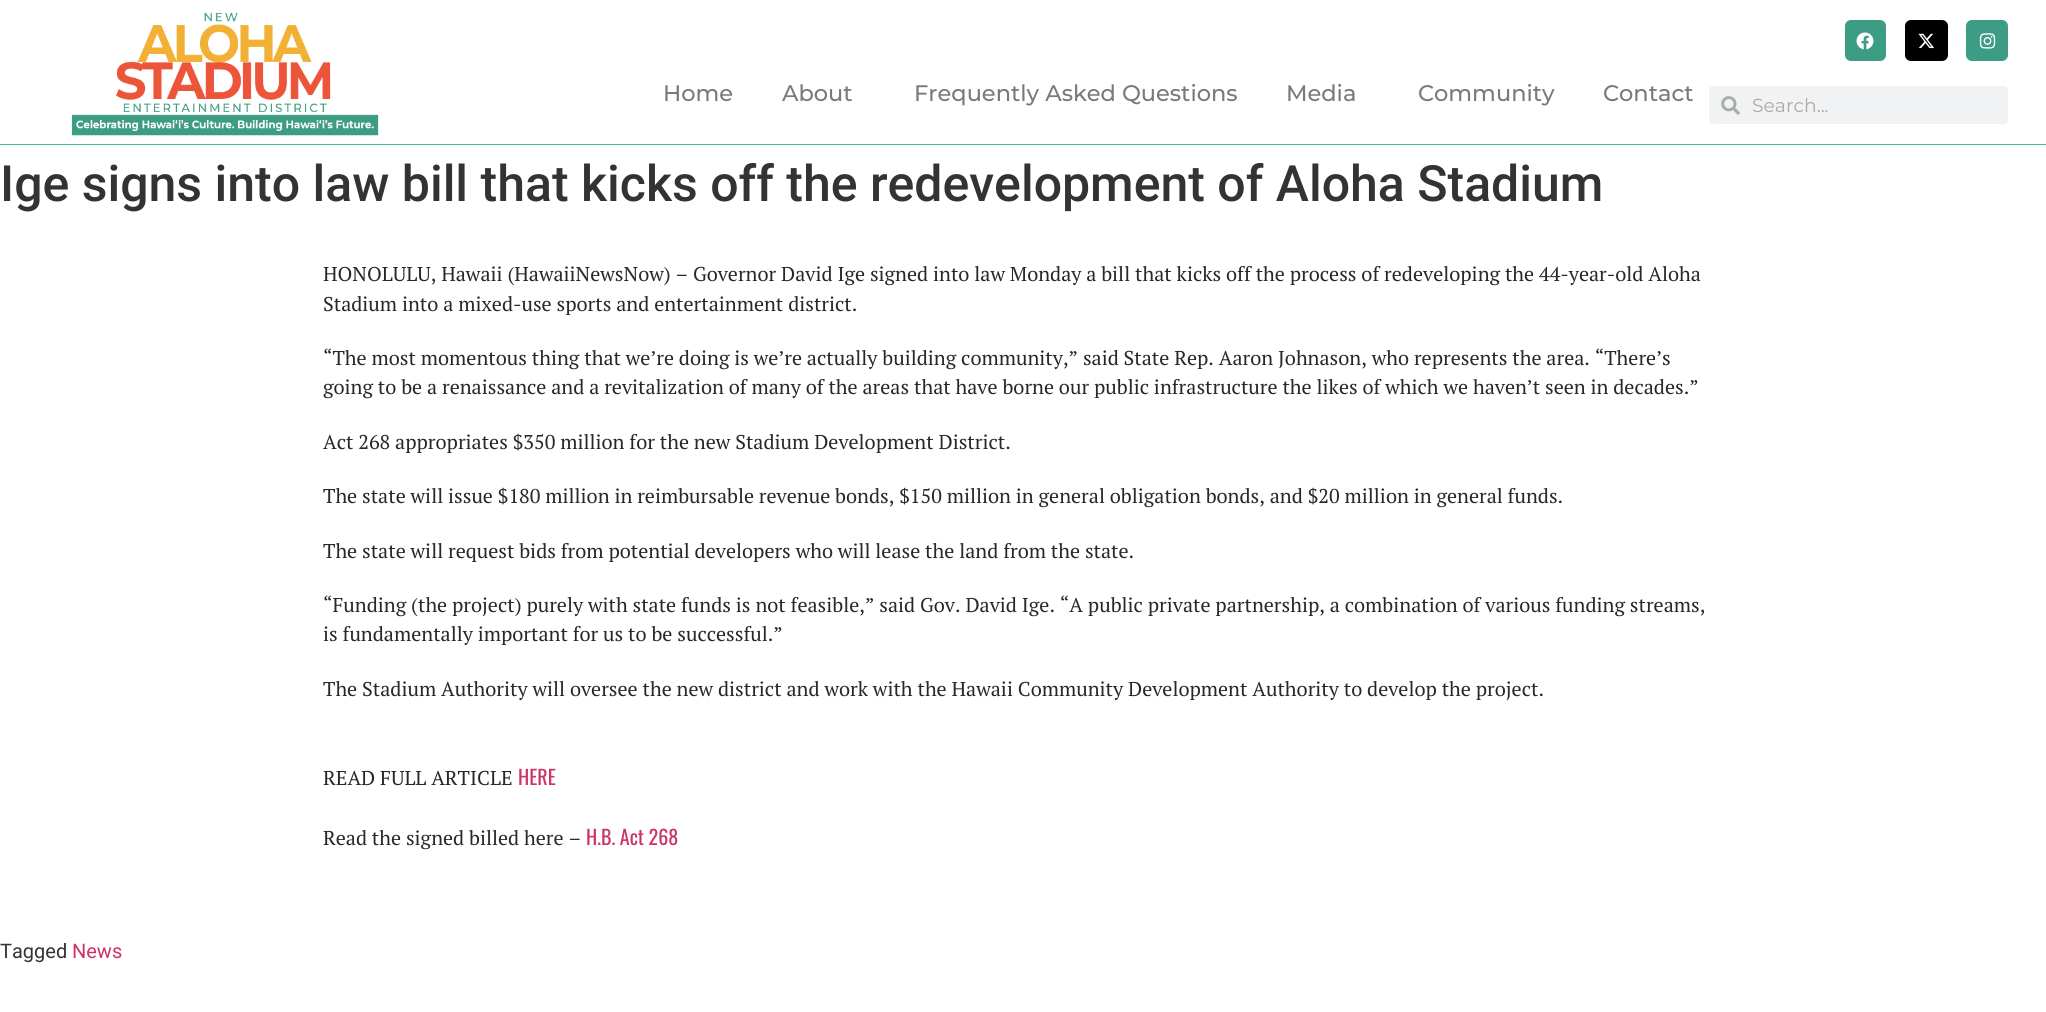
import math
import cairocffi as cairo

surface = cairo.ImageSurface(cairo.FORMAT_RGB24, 2046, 1012)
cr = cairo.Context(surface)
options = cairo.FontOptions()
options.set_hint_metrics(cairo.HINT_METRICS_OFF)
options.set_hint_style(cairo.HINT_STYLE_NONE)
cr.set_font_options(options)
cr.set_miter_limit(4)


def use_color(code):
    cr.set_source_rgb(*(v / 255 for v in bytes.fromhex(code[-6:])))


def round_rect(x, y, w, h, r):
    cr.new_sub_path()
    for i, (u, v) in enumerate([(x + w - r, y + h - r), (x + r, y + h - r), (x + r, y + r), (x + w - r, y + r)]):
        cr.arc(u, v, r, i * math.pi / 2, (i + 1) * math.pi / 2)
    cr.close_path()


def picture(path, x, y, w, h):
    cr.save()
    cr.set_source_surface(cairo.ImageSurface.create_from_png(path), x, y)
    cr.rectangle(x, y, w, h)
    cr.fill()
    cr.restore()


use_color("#ffffff")
cr.paint()
use_color("#4fb99f")
cr.rectangle(0, 144, 2046, 1)
cr.fill()
picture("img1.png", 71, 12, 308, 124)
cr.select_font_face("Montserrat Medium")
cr.set_font_size(22.5)
use_color("#7a7a7a")
cr.move_to(663, 101)
cr.show_text("Home")
cr.move_to(782, 101)
cr.show_text("About")
cr.move_to(914, 101)
cr.show_text("Frequently Asked Questions")
cr.move_to(1286, 101)
cr.show_text("Media")
cr.move_to(1418, 101)
cr.show_text("Community")
cr.move_to(1603, 101)
cr.show_text("Contact")
use_color("#3d9c84")
round_rect(1845, 20, 41, 41, 6)
cr.fill()
picture("img2.png", 1856, 32, 18, 18)
use_color("#000000")
round_rect(1905, 20, 43, 41, 6)
cr.fill()
picture("img3.png", 1918, 33, 16, 16)
use_color("#3d9c84")
round_rect(1966, 20, 42, 41, 6)
cr.fill()
picture("img4.png", 1979, 33, 17, 16)
use_color("#f1f2f3")
round_rect(1709, 86, 299, 38, 4)
cr.fill()
picture("img5.png", 1721, 96, 19, 19)
cr.select_font_face("Montserrat")
cr.set_font_size(18.75)
use_color("#aaaaaa")
cr.move_to(1752, 112)
cr.show_text("Search...")
cr.select_font_face("Roboto Medium")
cr.set_font_size(50)
use_color("#333333")
cr.move_to(0, 201)
cr.show_text("Ige signs into law bill that kicks off the redevelopment of Aloha Stadium")
cr.select_font_face("PT Serif")
cr.set_font_size(20)
use_color("#282828")
cr.move_to(323, 281)
cr.show_text("HONOLULU, Hawaii (HawaiiNewsNow) – Governor David Ige signed into law Monday a bill that kicks off the process of redeveloping the 44-year-old Aloha")
cr.move_to(323, 311)
cr.show_text("Stadium into a mixed-use sports and entertainment district.")
cr.move_to(323, 365)
cr.show_text("“The most momentous thing that we’re doing is we’re actually building community,” said State Rep. Aaron Johnason, who represents the area. “There’s")
cr.move_to(323, 394)
cr.show_text("going to be a renaissance and a revitalization of many of the areas that have borne our public infrastructure the likes of which we haven’t seen in decades.”")
cr.move_to(323, 449)
cr.show_text("Act 268 appropriates $350 million for the new Stadium Development District.")
cr.move_to(323, 503)
cr.show_text("The state will issue $180 million in reimbursable revenue bonds, $150 million in general obligation bonds, and $20 million in general funds.")
cr.move_to(323, 558)
cr.show_text("The state will request bids from potential developers who will lease the land from the state.")
cr.move_to(323, 612)
cr.show_text("“Funding (the project) purely with state funds is not feasible,” said Gov. David Ige. “A public private partnership, a combination of various funding streams,")
cr.move_to(323, 641)
cr.show_text("is fundamentally important for us to be successful.”")
cr.move_to(323, 696)
cr.show_text("The Stadium Authority will oversee the new district and work with the Hawaii Community Development Authority to develop the project.")
cr.move_to(323, 785)
cr.show_text("READ FULL ARTICLE")
cr.select_font_face("Oswald")
use_color("#cc3366")
cr.move_to(518, 785)
cr.show_text("HERE")
cr.select_font_face("PT Serif")
use_color("#282828")
cr.move_to(323, 845)
cr.show_text("Read the signed billed here –")
cr.select_font_face("Oswald")
use_color("#cc3366")
cr.move_to(586, 845)
cr.show_text("H.B. Act 268")
cr.select_font_face("Roboto")
use_color("#333333")
cr.move_to(0, 958)
cr.show_text("Tagged")
use_color("#cc3366")
cr.move_to(72, 958)
cr.show_text("News")
surface.write_to_png("result.png")
